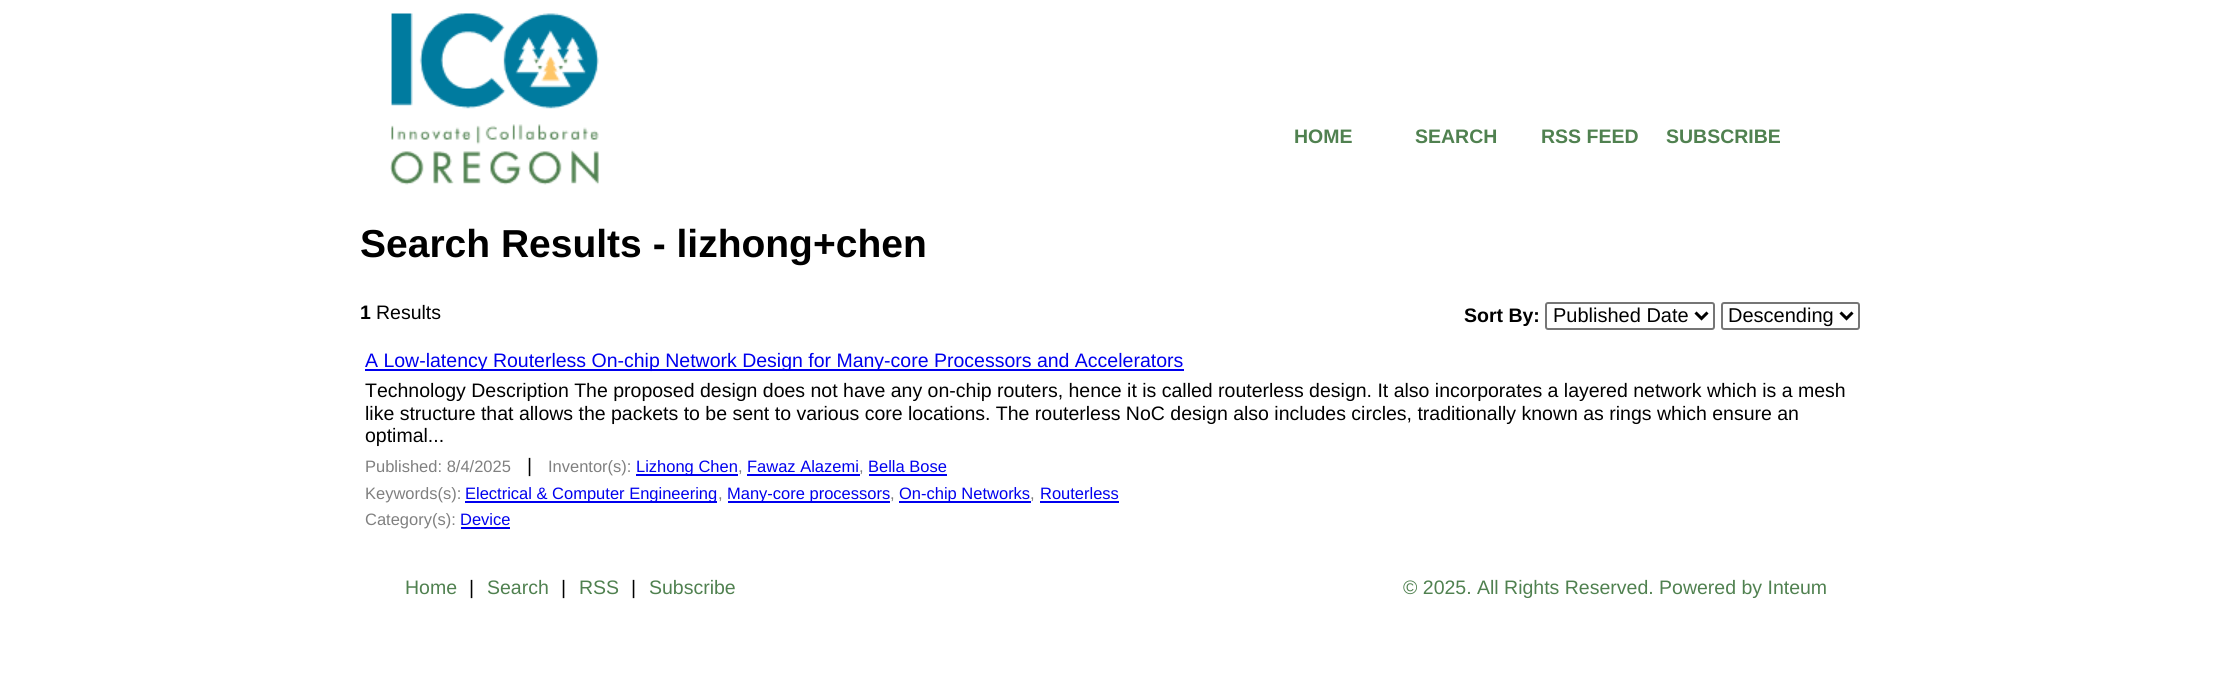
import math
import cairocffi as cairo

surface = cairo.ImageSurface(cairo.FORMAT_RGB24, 2220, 674)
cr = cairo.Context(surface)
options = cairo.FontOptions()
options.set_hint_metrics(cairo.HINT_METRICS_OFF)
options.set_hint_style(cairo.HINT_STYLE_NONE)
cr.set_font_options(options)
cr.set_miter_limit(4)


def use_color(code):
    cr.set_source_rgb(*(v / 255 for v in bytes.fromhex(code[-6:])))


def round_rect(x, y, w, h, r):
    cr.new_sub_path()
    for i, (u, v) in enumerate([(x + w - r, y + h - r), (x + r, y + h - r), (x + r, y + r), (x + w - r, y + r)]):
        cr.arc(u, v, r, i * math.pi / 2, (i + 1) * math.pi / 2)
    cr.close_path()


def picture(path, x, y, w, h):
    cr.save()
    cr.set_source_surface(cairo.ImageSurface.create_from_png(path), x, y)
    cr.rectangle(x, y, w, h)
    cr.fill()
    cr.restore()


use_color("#ffffff")
cr.paint()
picture("img1.png", 390, 13, 209, 172)
cr.select_font_face("Liberation Sans", cairo.FONT_SLANT_NORMAL, cairo.FONT_WEIGHT_BOLD)
cr.set_font_size(19.5)
use_color("#508150")
cr.move_to(1294, 143)
cr.show_text("HOME")
cr.move_to(1415, 143)
cr.show_text("SEARCH")
cr.move_to(1541, 143)
cr.show_text("RSS FEED")
cr.move_to(1666, 143)
cr.show_text("SUBSCRIBE")
cr.set_font_size(39)
use_color("#000000")
cr.move_to(360, 257)
cr.show_text("Search Results - lizhong+chen")
cr.set_font_size(19.5)
cr.move_to(360, 319)
cr.show_text("1")
cr.select_font_face("Liberation Sans")
cr.move_to(376, 319)
cr.show_text("Results")
cr.select_font_face("Liberation Sans", cairo.FONT_SLANT_NORMAL, cairo.FONT_WEIGHT_BOLD)
cr.move_to(1464, 322)
cr.show_text("Sort By:")
round_rect(1546, 303, 168, 26, 2)
use_color("#767676")
cr.stroke()
cr.new_path()
cr.move_to(1695.5, 312.5)
cr.line_to(1701.5, 318.5)
cr.line_to(1707.5, 312.5)
use_color("#000000")
cr.set_line_width(3)
cr.stroke()
cr.select_font_face("Liberation Sans")
cr.set_font_size(20)
cr.move_to(1553, 322)
cr.show_text("Published Date")
round_rect(1722, 303, 137, 26, 2)
use_color("#767676")
cr.set_line_width(2)
cr.stroke()
cr.new_path()
cr.move_to(1840.5, 312.5)
cr.line_to(1846.5, 318.5)
cr.line_to(1852.5, 312.5)
use_color("#000000")
cr.set_line_width(3)
cr.stroke()
cr.move_to(1728, 322)
cr.show_text("Descending")
use_color("#0000ee")
cr.rectangle(365, 369, 819, 2)
cr.fill()
cr.set_font_size(19.5)
cr.move_to(365, 367)
cr.show_text("A Low-latency Routerless On-chip Network Design for Many-core Processors and Accelerators")
use_color("#000000")
cr.move_to(365, 397)
cr.show_text("Technology Description The proposed design does not have any on-chip routers, hence it is called routerless design. It also incorporates a layered network which is a mesh")
cr.move_to(365, 420)
cr.show_text("like structure that allows the packets to be sent to various core locations. The routerless NoC design also includes circles, traditionally known as rings which ensure an")
cr.move_to(365, 442)
cr.show_text("optimal...")
cr.set_font_size(16.5)
use_color("#808080")
cr.move_to(365, 472)
cr.show_text("Published: 8/4/2025")
cr.set_font_size(19.5)
use_color("#000000")
cr.move_to(527, 472)
cr.show_text("|")
cr.set_font_size(16.5)
use_color("#808080")
cr.move_to(548, 472)
cr.show_text("Inventor(s):")
use_color("#0000ee")
cr.rectangle(636, 474, 102, 2)
cr.fill()
cr.move_to(636, 472)
cr.show_text("Lizhong Chen")
use_color("#808080")
cr.move_to(738, 472)
cr.show_text(",")
use_color("#0000ee")
cr.move_to(747, 472)
cr.show_text("Fawaz Alazemi")
use_color("#808080")
cr.move_to(859, 472)
cr.show_text(",")
use_color("#0000ee")
cr.rectangle(747, 474, 113, 2)
cr.fill()
cr.rectangle(869, 474, 78, 2)
cr.fill()
cr.move_to(868, 472)
cr.show_text("Bella Bose")
use_color("#808080")
cr.move_to(365, 499)
cr.show_text("Keywords(s):")
use_color("#0000ee")
cr.rectangle(465, 501, 252, 2)
cr.fill()
cr.move_to(465, 499)
cr.show_text("Electrical & Computer Engineering")
use_color("#808080")
cr.move_to(718, 499)
cr.show_text(",")
use_color("#0000ee")
cr.rectangle(728, 501, 162, 2)
cr.fill()
cr.move_to(727, 499)
cr.show_text("Many-core processors")
use_color("#808080")
cr.move_to(890, 499)
cr.show_text(",")
use_color("#0000ee")
cr.rectangle(899, 501, 132, 2)
cr.fill()
cr.move_to(899, 499)
cr.show_text("On-chip Networks")
use_color("#808080")
cr.move_to(1030, 499)
cr.show_text(",")
use_color("#0000ee")
cr.rectangle(1040, 501, 79, 2)
cr.fill()
cr.move_to(1040, 499)
cr.show_text("Routerless")
use_color("#808080")
cr.move_to(365, 525)
cr.show_text("Category(s):")
use_color("#0000ee")
cr.move_to(460, 525)
cr.show_text("Device")
cr.rectangle(461, 527, 49, 2)
cr.fill()
cr.set_font_size(19.5)
use_color("#508150")
cr.move_to(405, 594)
cr.show_text("Home")
use_color("#000000")
cr.move_to(469, 594)
cr.show_text("|")
use_color("#508150")
cr.move_to(487, 594)
cr.show_text("Search")
use_color("#000000")
cr.move_to(561, 594)
cr.show_text("|")
use_color("#508150")
cr.move_to(579, 594)
cr.show_text("RSS")
use_color("#000000")
cr.move_to(631, 594)
cr.show_text("|")
use_color("#508150")
cr.move_to(649, 594)
cr.show_text("Subscribe")
cr.move_to(1403, 594)
cr.show_text("© 2025. All Rights Reserved. Powered by Inteum")
surface.write_to_png("result.png")
